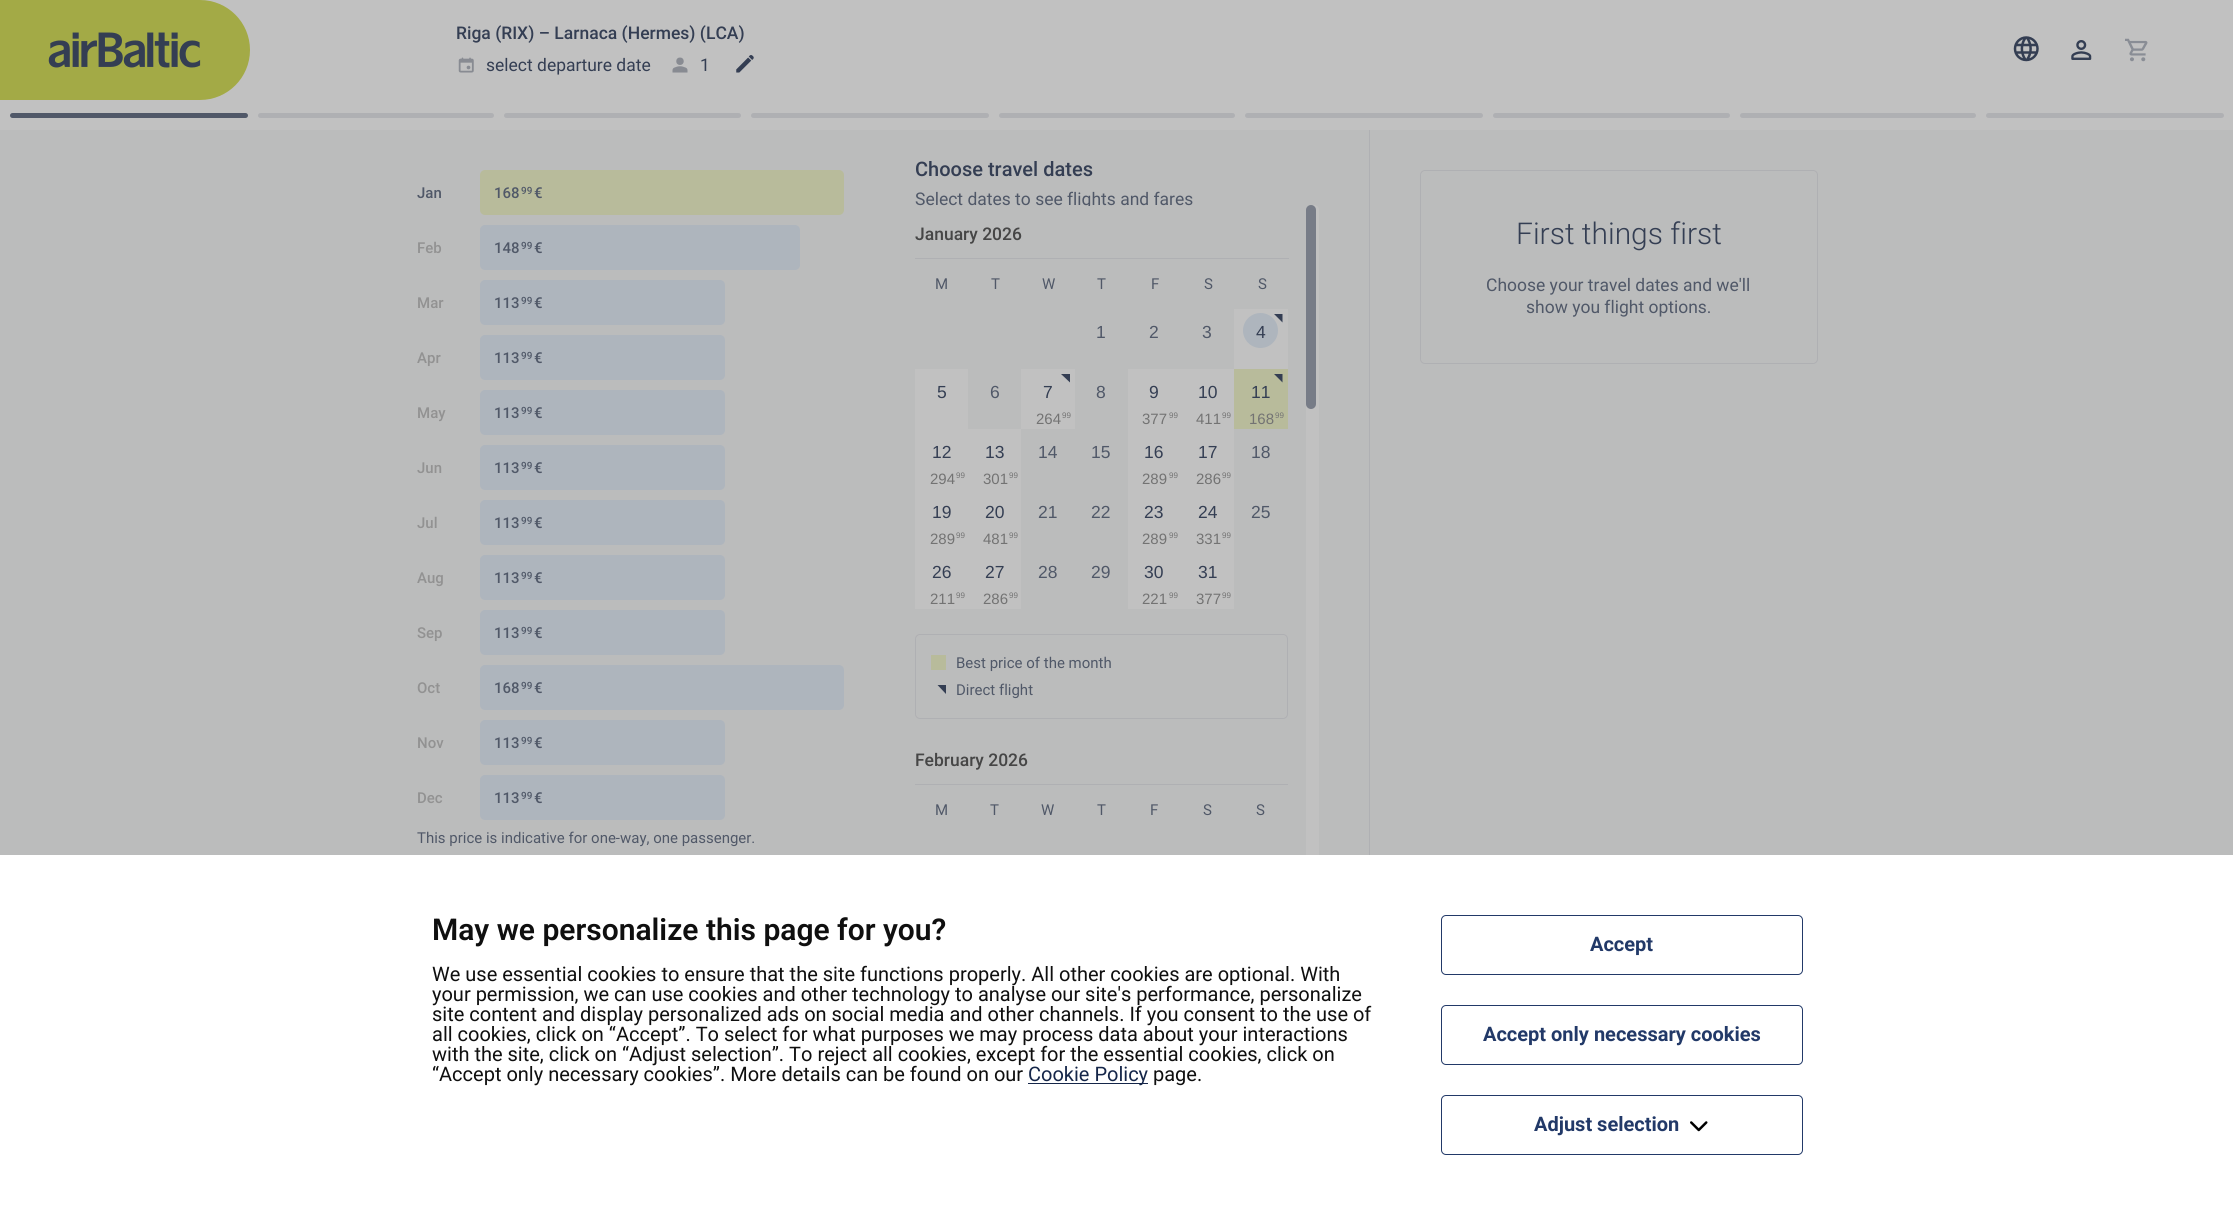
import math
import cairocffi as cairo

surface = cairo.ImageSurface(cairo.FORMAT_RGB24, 2233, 1214)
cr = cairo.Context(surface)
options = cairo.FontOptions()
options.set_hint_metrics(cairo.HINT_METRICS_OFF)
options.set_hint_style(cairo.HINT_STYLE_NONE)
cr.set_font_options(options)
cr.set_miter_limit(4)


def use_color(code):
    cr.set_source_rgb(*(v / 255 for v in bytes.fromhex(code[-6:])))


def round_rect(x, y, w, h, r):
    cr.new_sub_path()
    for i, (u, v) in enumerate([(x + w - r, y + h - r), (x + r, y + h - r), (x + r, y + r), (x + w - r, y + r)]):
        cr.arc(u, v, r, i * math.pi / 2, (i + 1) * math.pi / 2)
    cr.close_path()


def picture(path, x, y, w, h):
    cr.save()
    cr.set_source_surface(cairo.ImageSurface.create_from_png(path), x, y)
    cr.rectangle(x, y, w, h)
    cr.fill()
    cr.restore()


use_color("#bbbcbc")
cr.paint()
use_color("#c1c1c1")
cr.rectangle(0, 0, 2233, 130)
cr.fill()
picture("img1.png", 0, 0, 250, 100)
cr.select_font_face("Roboto Medium")
cr.set_font_size(17.5)
use_color("#343e53")
cr.move_to(456, 39)
cr.show_text("Riga (RIX) – Larnaca (Hermes) (LCA)")
picture("img2.png", 458, 57, 16, 16)
cr.select_font_face("Roboto")
cr.move_to(486, 71)
cr.show_text("select departure date")
picture("img3.png", 672, 57, 16, 16)
cr.move_to(700, 71)
cr.show_text("1")
picture("img4.png", 736, 55, 18, 18)
picture("img5.png", 2013, 36, 26, 26)
picture("img6.png", 2071, 40, 21, 20)
picture("img7.png", 2125, 38, 23, 24)
use_color("#505868")
round_rect(10, 113, 238, 5, 2.5)
cr.fill()
use_color("#afb0b3")
round_rect(258, 113, 236, 5, 2.5)
cr.fill()
round_rect(504, 113, 237, 5, 2.5)
cr.fill()
round_rect(751, 113, 238, 5, 2.5)
cr.fill()
round_rect(999, 113, 236, 5, 2.5)
cr.fill()
round_rect(1245, 113, 238, 5, 2.5)
cr.fill()
round_rect(1493, 113, 237, 5, 2.5)
cr.fill()
round_rect(1740, 113, 236, 5, 2.5)
cr.fill()
round_rect(1986, 113, 238, 5, 2.5)
cr.fill()
cr.select_font_face("Roboto Medium")
cr.set_font_size(15)
use_color("#505868")
cr.move_to(417, 198)
cr.show_text("Jan")
use_color("#b8bb9b")
round_rect(480, 170, 364, 45, 5)
cr.fill()
use_color("#505868")
cr.move_to(494, 198)
cr.show_text("168")
cr.set_font_size(10)
cr.move_to(521, 194)
cr.show_text("99")
cr.set_font_size(15)
cr.move_to(534, 198)
cr.show_text("€")
use_color("#929292")
cr.move_to(417, 253)
cr.show_text("Feb")
use_color("#aeb5bd")
round_rect(480, 225, 320, 45, 5)
cr.fill()
use_color("#505868")
cr.move_to(494, 253)
cr.show_text("148")
cr.set_font_size(10)
cr.move_to(521, 249)
cr.show_text("99")
cr.set_font_size(15)
cr.move_to(534, 253)
cr.show_text("€")
use_color("#929292")
cr.move_to(417, 308)
cr.show_text("Mar")
use_color("#aeb5bd")
round_rect(480, 280, 245, 45, 5)
cr.fill()
use_color("#505868")
cr.move_to(494, 308)
cr.show_text("113")
cr.set_font_size(10)
cr.move_to(521, 304)
cr.show_text("99")
cr.set_font_size(15)
cr.move_to(534, 308)
cr.show_text("€")
use_color("#929292")
cr.move_to(417, 363)
cr.show_text("Apr")
use_color("#aeb5bd")
round_rect(480, 335, 245, 45, 5)
cr.fill()
use_color("#505868")
cr.move_to(494, 363)
cr.show_text("113")
cr.set_font_size(10)
cr.move_to(521, 359)
cr.show_text("99")
cr.set_font_size(15)
cr.move_to(534, 363)
cr.show_text("€")
use_color("#929292")
cr.move_to(417, 418)
cr.show_text("May")
use_color("#aeb5bd")
round_rect(480, 390, 245, 45, 5)
cr.fill()
use_color("#505868")
cr.move_to(494, 418)
cr.show_text("113")
cr.set_font_size(10)
cr.move_to(521, 414)
cr.show_text("99")
cr.set_font_size(15)
cr.move_to(534, 418)
cr.show_text("€")
use_color("#929292")
cr.move_to(417, 473)
cr.show_text("Jun")
use_color("#aeb5bd")
round_rect(480, 445, 245, 45, 5)
cr.fill()
use_color("#505868")
cr.move_to(494, 473)
cr.show_text("113")
cr.set_font_size(10)
cr.move_to(521, 469)
cr.show_text("99")
cr.set_font_size(15)
cr.move_to(534, 473)
cr.show_text("€")
use_color("#929292")
cr.move_to(417, 528)
cr.show_text("Jul")
use_color("#aeb5bd")
round_rect(480, 500, 245, 45, 5)
cr.fill()
use_color("#505868")
cr.move_to(494, 528)
cr.show_text("113")
cr.set_font_size(10)
cr.move_to(521, 524)
cr.show_text("99")
cr.set_font_size(15)
cr.move_to(534, 528)
cr.show_text("€")
use_color("#929292")
cr.move_to(417, 583)
cr.show_text("Aug")
use_color("#aeb5bd")
round_rect(480, 555, 245, 45, 5)
cr.fill()
use_color("#505868")
cr.move_to(494, 583)
cr.show_text("113")
cr.set_font_size(10)
cr.move_to(521, 579)
cr.show_text("99")
cr.set_font_size(15)
cr.move_to(534, 583)
cr.show_text("€")
use_color("#929292")
cr.move_to(417, 638)
cr.show_text("Sep")
use_color("#aeb5bd")
round_rect(480, 610, 245, 45, 5)
cr.fill()
use_color("#505868")
cr.move_to(494, 638)
cr.show_text("113")
cr.set_font_size(10)
cr.move_to(521, 634)
cr.show_text("99")
cr.set_font_size(15)
cr.move_to(534, 638)
cr.show_text("€")
use_color("#929292")
cr.move_to(417, 693)
cr.show_text("Oct")
use_color("#aeb5bd")
round_rect(480, 665, 364, 45, 5)
cr.fill()
use_color("#505868")
cr.move_to(494, 693)
cr.show_text("168")
cr.set_font_size(10)
cr.move_to(521, 689)
cr.show_text("99")
cr.set_font_size(15)
cr.move_to(534, 693)
cr.show_text("€")
use_color("#929292")
cr.move_to(417, 748)
cr.show_text("Nov")
use_color("#aeb5bd")
round_rect(480, 720, 245, 45, 5)
cr.fill()
use_color("#505868")
cr.move_to(494, 748)
cr.show_text("113")
cr.set_font_size(10)
cr.move_to(521, 744)
cr.show_text("99")
cr.set_font_size(15)
cr.move_to(534, 748)
cr.show_text("€")
use_color("#929292")
cr.move_to(417, 803)
cr.show_text("Dec")
use_color("#aeb5bd")
round_rect(480, 775, 245, 45, 5)
cr.fill()
use_color("#505868")
cr.move_to(494, 803)
cr.show_text("113")
cr.set_font_size(10)
cr.move_to(521, 799)
cr.show_text("99")
cr.set_font_size(15)
cr.move_to(534, 803)
cr.show_text("€")
cr.select_font_face("Roboto")
cr.move_to(417, 843)
cr.show_text("This price is indicative for one-way, one passenger.")
cr.select_font_face("Roboto Medium")
cr.set_font_size(20)
use_color("#343e53")
cr.move_to(915, 176)
cr.show_text("Choose travel dates")
cr.select_font_face("Roboto")
cr.set_font_size(17.5)
use_color("#505868")
cr.move_to(915, 205)
cr.show_text("Select dates to see flights and fares")
use_color("#bbbcbc")
cr.rectangle(1082, 206, 8, 3)
cr.fill()
use_color("#afb0b3")
cr.rectangle(915, 258, 374, 1)
cr.fill()
cr.select_font_face("Roboto Medium")
use_color("#464646")
cr.move_to(915, 240)
cr.show_text("January 2026")
cr.select_font_face("Roboto")
cr.set_font_size(15)
use_color("#505868")
cr.move_to(935, 289)
cr.show_text("M")
cr.move_to(991, 289)
cr.show_text("T")
cr.move_to(1042, 289)
cr.show_text("W")
cr.move_to(1097, 289)
cr.show_text("T")
cr.move_to(1151, 289)
cr.show_text("F")
cr.move_to(1204, 289)
cr.show_text("S")
cr.move_to(1258, 289)
cr.show_text("S")
cr.select_font_face("Liberation Sans")
cr.set_font_size(17.5)
cr.move_to(1096, 338)
cr.show_text("1")
cr.move_to(1149, 338)
cr.show_text("2")
cr.move_to(1202, 338)
cr.show_text("3")
use_color("#c1c1c1")
cr.rectangle(1234, 309, 54, 60)
cr.fill()
use_color("#343e53")
cr.new_path()
cr.move_to(1282.5, 314)
cr.line_to(1282.5, 322.5)
cr.line_to(1274, 314)
cr.close_path()
cr.fill()
use_color("#aeb5bd")
cr.arc(1260.5, 330.5, 17.5, 0, 2 * math.pi)
cr.fill()
use_color("#343e53")
cr.move_to(1256, 338)
cr.show_text("4")
use_color("#c1c1c1")
cr.rectangle(915, 369, 53, 240)
cr.fill()
use_color("#343e53")
cr.move_to(937, 398)
cr.show_text("5")
use_color("#505868")
cr.move_to(990, 398)
cr.show_text("6")
use_color("#c1c1c1")
cr.rectangle(1021, 369, 54, 60)
cr.fill()
use_color("#343e53")
cr.new_path()
cr.move_to(1070, 374)
cr.line_to(1070, 382.5)
cr.line_to(1061, 374)
cr.close_path()
cr.fill()
cr.move_to(1043, 398)
cr.show_text("7")
cr.set_font_size(15)
use_color("#737373")
cr.move_to(1036, 424)
cr.show_text("264")
cr.set_font_size(8)
cr.move_to(1062, 418)
cr.show_text("99")
cr.set_font_size(17.5)
use_color("#505868")
cr.move_to(1096, 398)
cr.show_text("8")
use_color("#c1c1c1")
cr.rectangle(1128, 369, 106, 60)
cr.fill()
use_color("#343e53")
cr.move_to(1149, 398)
cr.show_text("9")
cr.set_font_size(15)
use_color("#737373")
cr.move_to(1142, 424)
cr.show_text("377")
cr.set_font_size(8)
cr.move_to(1169, 418)
cr.show_text("99")
cr.set_font_size(17.5)
use_color("#343e53")
cr.move_to(1198, 398)
cr.show_text("10")
cr.set_font_size(15)
use_color("#737373")
cr.move_to(1196, 424)
cr.show_text("411")
cr.set_font_size(8)
cr.move_to(1222, 418)
cr.show_text("99")
use_color("#b8bb9b")
cr.rectangle(1234, 369, 54, 60)
cr.fill()
use_color("#343e53")
cr.new_path()
cr.move_to(1282.5, 374)
cr.line_to(1282.5, 382.5)
cr.line_to(1274, 374)
cr.close_path()
cr.fill()
cr.set_font_size(17.5)
cr.move_to(1251, 398)
cr.show_text("11")
cr.set_font_size(15)
use_color("#737373")
cr.move_to(1249, 424)
cr.show_text("168")
cr.set_font_size(8)
cr.move_to(1275, 418)
cr.show_text("99")
cr.set_font_size(17.5)
use_color("#343e53")
cr.move_to(932, 458)
cr.show_text("12")
cr.set_font_size(15)
use_color("#737373")
cr.move_to(930, 484)
cr.show_text("294")
cr.set_font_size(8)
cr.move_to(956, 478)
cr.show_text("99")
use_color("#c1c1c1")
cr.rectangle(968, 429, 53, 180)
cr.fill()
cr.set_font_size(17.5)
use_color("#343e53")
cr.move_to(985, 458)
cr.show_text("13")
cr.set_font_size(15)
use_color("#737373")
cr.move_to(983, 484)
cr.show_text("301")
cr.set_font_size(8)
cr.move_to(1009, 478)
cr.show_text("99")
cr.set_font_size(17.5)
use_color("#505868")
cr.move_to(1038, 458)
cr.show_text("14")
cr.move_to(1091, 458)
cr.show_text("15")
use_color("#c1c1c1")
cr.rectangle(1128, 429, 106, 60)
cr.fill()
use_color("#343e53")
cr.move_to(1144, 458)
cr.show_text("16")
cr.set_font_size(15)
use_color("#737373")
cr.move_to(1142, 484)
cr.show_text("289")
cr.set_font_size(8)
cr.move_to(1169, 478)
cr.show_text("99")
cr.set_font_size(17.5)
use_color("#343e53")
cr.move_to(1198, 458)
cr.show_text("17")
cr.set_font_size(15)
use_color("#737373")
cr.move_to(1196, 484)
cr.show_text("286")
cr.set_font_size(8)
cr.move_to(1222, 478)
cr.show_text("99")
cr.set_font_size(17.5)
use_color("#505868")
cr.move_to(1251, 458)
cr.show_text("18")
use_color("#343e53")
cr.move_to(932, 518)
cr.show_text("19")
cr.set_font_size(15)
use_color("#737373")
cr.move_to(930, 544)
cr.show_text("289")
cr.set_font_size(8)
cr.move_to(956, 538)
cr.show_text("99")
cr.set_font_size(17.5)
use_color("#343e53")
cr.move_to(985, 518)
cr.show_text("20")
cr.set_font_size(15)
use_color("#737373")
cr.move_to(983, 544)
cr.show_text("481")
cr.set_font_size(8)
cr.move_to(1009, 538)
cr.show_text("99")
cr.set_font_size(17.5)
use_color("#505868")
cr.move_to(1038, 518)
cr.show_text("21")
cr.move_to(1091, 518)
cr.show_text("22")
use_color("#c1c1c1")
cr.rectangle(1128, 489, 106, 60)
cr.fill()
use_color("#343e53")
cr.move_to(1144, 518)
cr.show_text("23")
cr.set_font_size(15)
use_color("#737373")
cr.move_to(1142, 544)
cr.show_text("289")
cr.set_font_size(8)
cr.move_to(1169, 538)
cr.show_text("99")
cr.set_font_size(17.5)
use_color("#343e53")
cr.move_to(1198, 518)
cr.show_text("24")
cr.set_font_size(15)
use_color("#737373")
cr.move_to(1196, 544)
cr.show_text("331")
cr.set_font_size(8)
cr.move_to(1222, 538)
cr.show_text("99")
cr.set_font_size(17.5)
use_color("#505868")
cr.move_to(1251, 518)
cr.show_text("25")
use_color("#343e53")
cr.move_to(932, 578)
cr.show_text("26")
cr.set_font_size(15)
use_color("#737373")
cr.move_to(930, 604)
cr.show_text("211")
cr.set_font_size(8)
cr.move_to(956, 598)
cr.show_text("99")
cr.set_font_size(17.5)
use_color("#343e53")
cr.move_to(985, 578)
cr.show_text("27")
cr.set_font_size(15)
use_color("#737373")
cr.move_to(983, 604)
cr.show_text("286")
cr.set_font_size(8)
cr.move_to(1009, 598)
cr.show_text("99")
cr.set_font_size(17.5)
use_color("#505868")
cr.move_to(1038, 578)
cr.show_text("28")
cr.move_to(1091, 578)
cr.show_text("29")
use_color("#c1c1c1")
cr.rectangle(1128, 549, 106, 60)
cr.fill()
use_color("#343e53")
cr.move_to(1144, 578)
cr.show_text("30")
cr.set_font_size(15)
use_color("#737373")
cr.move_to(1142, 604)
cr.show_text("221")
cr.set_font_size(8)
cr.move_to(1169, 598)
cr.show_text("99")
cr.set_font_size(17.5)
use_color("#343e53")
cr.move_to(1198, 578)
cr.show_text("31")
cr.set_font_size(15)
use_color("#737373")
cr.move_to(1196, 604)
cr.show_text("377")
cr.set_font_size(8)
cr.move_to(1222, 598)
cr.show_text("99")
round_rect(915.5, 634.5, 372, 84, 4.5)
use_color("#afb0b3")
cr.set_line_width(1)
cr.stroke()
use_color("#b8bb9b")
cr.rectangle(931, 655, 15, 15)
cr.fill()
cr.select_font_face("Roboto")
cr.set_font_size(15)
use_color("#505868")
cr.move_to(956, 668)
cr.show_text("Best price of the month")
use_color("#343e53")
cr.new_path()
cr.move_to(946, 685)
cr.line_to(946, 694)
cr.line_to(937.5, 685)
cr.close_path()
cr.fill()
use_color("#505868")
cr.move_to(956, 695)
cr.show_text("Direct flight")
use_color("#afb0b3")
cr.rectangle(915, 784, 373, 1)
cr.fill()
cr.select_font_face("Roboto Medium")
cr.set_font_size(17.5)
use_color("#464646")
cr.move_to(915, 766)
cr.show_text("February 2026")
cr.select_font_face("Roboto")
cr.set_font_size(15)
use_color("#505868")
cr.move_to(935, 815)
cr.show_text("M")
cr.move_to(990, 815)
cr.show_text("T")
cr.move_to(1041, 815)
cr.show_text("W")
cr.move_to(1097, 815)
cr.show_text("T")
cr.move_to(1150, 815)
cr.show_text("F")
cr.move_to(1203, 815)
cr.show_text("S")
cr.move_to(1256, 815)
cr.show_text("S")
use_color("#c1c1c1")
round_rect(1306, 205, 13, 900, 5)
cr.fill()
cr.set_source_rgba(0.208, 0.243, 0.325, 0.52)
round_rect(1306, 205, 10, 204, 5)
cr.fill()
use_color("#afb0b3")
cr.rectangle(1369, 130, 1, 725)
cr.fill()
round_rect(1420.5, 170.5, 397, 193, 4.5)
cr.stroke()
cr.select_font_face("Roboto Light")
cr.set_font_size(30)
use_color("#343e53")
cr.move_to(1516, 244)
cr.show_text("First things first")
cr.select_font_face("Roboto")
cr.set_font_size(17.5)
use_color("#505868")
cr.move_to(1486, 291)
cr.show_text("Choose your travel dates and we'll")
cr.move_to(1526, 313)
cr.show_text("show you flight options.")
use_color("#ffffff")
cr.rectangle(0, 855, 2233, 359)
cr.fill()
cr.select_font_face("Roboto SemiBold")
cr.set_font_size(30)
use_color("#0f0f0f")
cr.move_to(432, 940)
cr.show_text("May we personalize this page for you?")
cr.select_font_face("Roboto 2")
cr.set_font_size(20)
cr.move_to(432, 981)
cr.show_text("We use essential cookies to ensure that the site functions properly. All other cookies are optional. With")
cr.move_to(432, 1001)
cr.show_text("your permission, we can use cookies and other technology to analyse our site's performance, personalize")
cr.move_to(432, 1021)
cr.show_text("site content and display personalized ads on social media and other channels. If you consent to the use of")
cr.move_to(432, 1041)
cr.show_text("all cookies, click on “Accept”. To select for what purposes we may process data about your interactions")
cr.move_to(432, 1061)
cr.show_text("with the site, click on “Adjust selection”. To reject all cookies, except for the essential cookies, click on")
cr.move_to(432, 1081)
cr.show_text("“Accept only necessary cookies”. More details can be found on our")
use_color("#152649")
cr.rectangle(1028, 1083, 120, 1)
cr.fill()
cr.move_to(1028, 1081)
cr.show_text("Cookie Policy")
use_color("#0f0f0f")
cr.move_to(1153, 1081)
cr.show_text("page.")
round_rect(1441.5, 915.5, 361, 59, 4.5)
use_color("#223968")
cr.stroke()
cr.select_font_face("Roboto", cairo.FONT_SLANT_NORMAL, cairo.FONT_WEIGHT_BOLD)
cr.move_to(1590, 951)
cr.show_text("Accept")
round_rect(1441.5, 1005.5, 361, 59, 4.5)
cr.stroke()
cr.move_to(1483, 1041)
cr.show_text("Accept only necessary cookies")
round_rect(1441.5, 1095.5, 361, 59, 4.5)
cr.stroke()
cr.move_to(1534, 1131)
cr.show_text("Adjust selection")
picture("img8.png", 1690, 1121, 18, 11)
surface.write_to_png("result.png")
